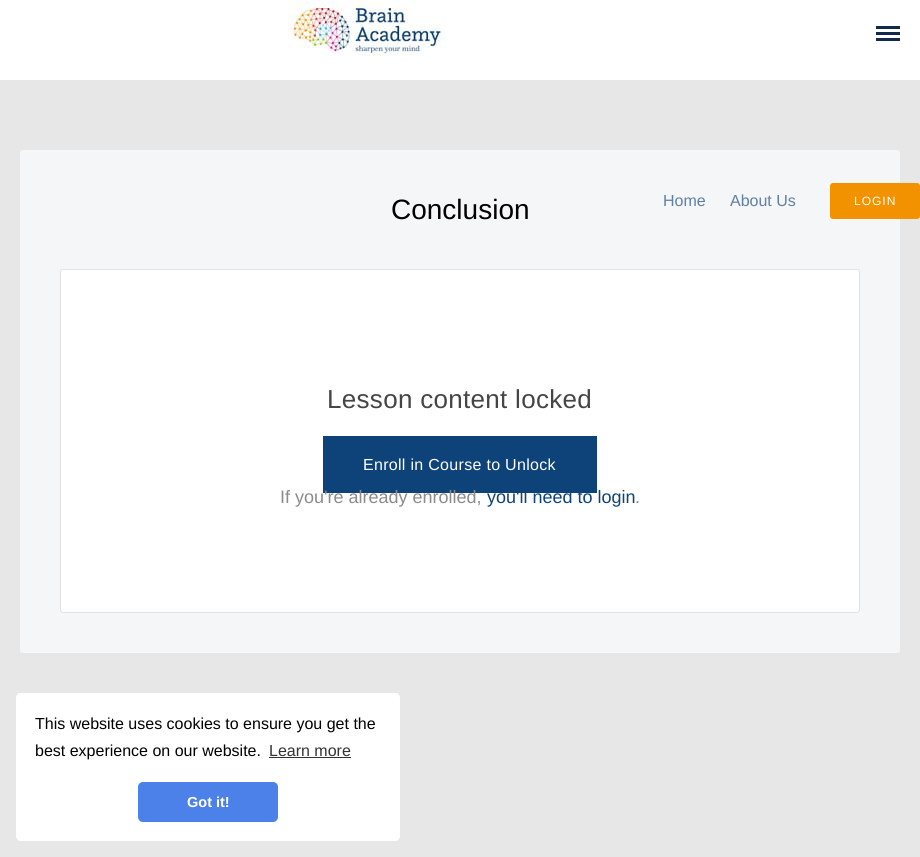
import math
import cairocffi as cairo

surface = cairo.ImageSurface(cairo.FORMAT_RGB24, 920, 857)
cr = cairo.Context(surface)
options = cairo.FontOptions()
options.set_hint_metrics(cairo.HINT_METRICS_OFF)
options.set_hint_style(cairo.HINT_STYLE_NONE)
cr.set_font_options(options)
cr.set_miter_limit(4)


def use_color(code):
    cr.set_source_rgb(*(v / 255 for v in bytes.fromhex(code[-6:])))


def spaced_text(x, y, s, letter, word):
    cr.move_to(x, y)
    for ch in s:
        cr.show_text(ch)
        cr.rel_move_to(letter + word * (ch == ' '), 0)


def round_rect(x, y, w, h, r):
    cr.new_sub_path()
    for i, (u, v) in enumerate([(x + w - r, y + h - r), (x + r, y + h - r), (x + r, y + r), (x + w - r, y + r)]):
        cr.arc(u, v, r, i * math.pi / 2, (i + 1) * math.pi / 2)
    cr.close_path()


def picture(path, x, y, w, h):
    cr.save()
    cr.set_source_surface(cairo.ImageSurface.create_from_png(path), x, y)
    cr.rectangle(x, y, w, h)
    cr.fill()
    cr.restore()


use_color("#e7e7e7")
cr.paint()
use_color("#f5f6f7")
round_rect(20, 150, 880, 503, 3)
cr.fill()
cr.select_font_face("Liberation Sans")
cr.set_font_size(28)
use_color("#000000")
cr.move_to(391, 219)
cr.show_text("Conclusion")
use_color("#ffffff")
round_rect(60.5, 269.5, 799, 343, 2.5)
cr.fill_preserve()
use_color("#e2e2e2")
cr.set_line_width(1)
cr.stroke()
cr.set_font_size(26)
use_color("#454545")
spaced_text(327, 408, "Lesson content locked", 0.3, 0)
use_color("#0e4379")
cr.rectangle(323, 436, 274, 57)
cr.fill()
cr.set_font_size(16)
use_color("#ffffff")
spaced_text(363, 470, "Enroll in Course to Unlock", 0.3, 0)
cr.set_font_size(18)
use_color("#8b8b8b")
cr.move_to(280, 503)
cr.show_text("If you're already enrolled,")
use_color("#0e4379")
cr.move_to(487, 503)
cr.show_text("you'll need to login")
use_color("#8b8b8b")
cr.move_to(635, 503)
cr.show_text(".")
use_color("#ffffff")
cr.rectangle(0, 0, 920, 80)
cr.fill()
picture("img1.png", 288, 0, 159, 56)
use_color("#112b4e")
cr.rectangle(876, 32, 24, 3)
cr.fill()
cr.rectangle(876, 26, 24, 3)
cr.fill()
cr.rectangle(876, 38, 24, 3)
cr.fill()
cr.set_font_size(16)
use_color("#5d80a4")
cr.move_to(663, 206)
cr.show_text("Home")
cr.move_to(730, 206)
cr.show_text("About Us")
use_color("#f39200")
round_rect(830, 183, 90, 36, 3)
cr.fill()
cr.set_font_size(12)
use_color("#ffffff")
spaced_text(854, 205, "LOGIN", 1, 0)
round_rect(16, 693, 384, 148, 5)
cr.fill()
cr.set_font_size(16)
use_color("#000000")
cr.move_to(35, 729)
cr.show_text("This website uses cookies to ensure you get the")
cr.move_to(35, 756)
cr.show_text("best experience on our website.")
use_color("#333333")
cr.move_to(269, 756)
cr.show_text("Learn more")
cr.rectangle(269, 757, 82, 1)
cr.fill()
use_color("#4b81e8")
round_rect(138, 782, 140, 40, 5)
cr.fill()
cr.select_font_face("Liberation Sans", cairo.FONT_SLANT_NORMAL, cairo.FONT_WEIGHT_BOLD)
cr.set_font_size(14.5)
use_color("#ffffff")
cr.move_to(187, 807)
cr.show_text("Got it!")
surface.write_to_png("result.png")
